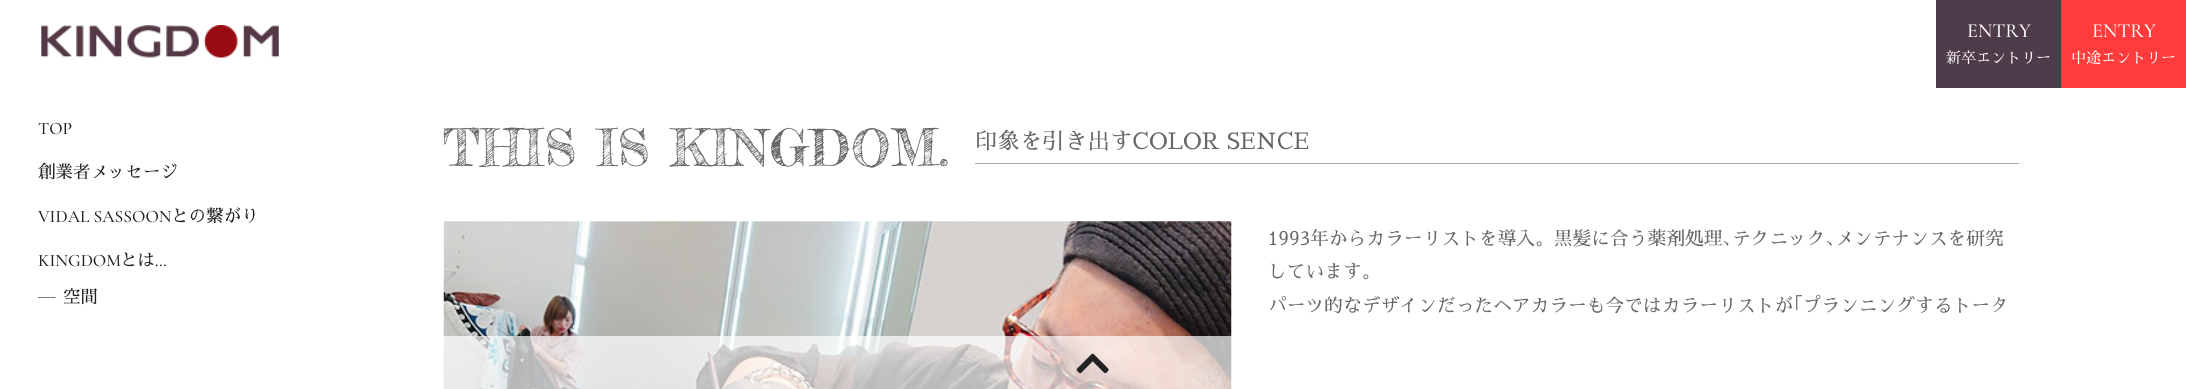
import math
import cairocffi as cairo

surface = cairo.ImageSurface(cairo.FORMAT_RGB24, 2186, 389)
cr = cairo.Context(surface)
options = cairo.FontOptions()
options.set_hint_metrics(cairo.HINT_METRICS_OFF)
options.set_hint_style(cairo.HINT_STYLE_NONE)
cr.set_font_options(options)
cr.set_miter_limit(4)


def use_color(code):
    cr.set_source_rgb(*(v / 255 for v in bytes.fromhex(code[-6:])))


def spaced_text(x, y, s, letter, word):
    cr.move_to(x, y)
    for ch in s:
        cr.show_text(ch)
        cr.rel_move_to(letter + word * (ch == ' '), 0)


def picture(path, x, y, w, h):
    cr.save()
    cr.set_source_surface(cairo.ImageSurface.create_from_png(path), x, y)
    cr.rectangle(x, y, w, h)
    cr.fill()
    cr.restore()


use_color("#ffffff")
cr.paint()
picture("img1.png", 41, 25, 238, 33)
use_color("#4f3c4a")
cr.rectangle(1936, 0, 125, 88)
cr.fill()
cr.select_font_face("Cormorant Garamond Medium")
cr.set_font_size(20)
use_color("#ffffff")
cr.move_to(1967, 37)
cr.show_text("ENTRY")
cr.select_font_face("Sawarabi Mincho")
cr.set_font_size(15)
cr.move_to(1946, 63)
cr.show_text("新卒エントリー")
use_color("#ff3b3b")
cr.rectangle(2061, 0, 125, 88)
cr.fill()
cr.select_font_face("Cormorant Garamond Medium")
cr.set_font_size(20)
use_color("#ffffff")
cr.move_to(2092, 37)
cr.show_text("ENTRY")
cr.select_font_face("Sawarabi Mincho")
cr.set_font_size(15)
cr.move_to(2071, 63)
cr.show_text("中途エントリー")
cr.select_font_face("Cormorant Garamond Medium")
cr.set_font_size(17.5)
use_color("#222222")
cr.move_to(38, 134)
cr.show_text("TOP")
cr.select_font_face("Sawarabi Mincho")
cr.move_to(38, 178)
cr.show_text("創業者メッセージ")
cr.select_font_face("Cormorant Garamond Medium")
cr.move_to(38, 222)
cr.show_text("VIDAL SASSOON")
cr.select_font_face("Sawarabi Mincho")
cr.move_to(171, 222)
cr.show_text("との繋がり")
cr.select_font_face("Cormorant Garamond Medium")
cr.move_to(38, 266)
cr.show_text("KINGDOM")
cr.select_font_face("Sawarabi Mincho")
cr.move_to(120, 266)
cr.show_text("とは")
cr.select_font_face("Cormorant Garamond Medium")
cr.move_to(155, 266)
cr.show_text("…")
cr.select_font_face("Sawarabi Mincho")
use_color("#666666")
cr.move_to(38, 304)
cr.show_text("─")
use_color("#222222")
cr.move_to(63, 303)
cr.show_text("空間")
cr.select_font_face("Fredericka the Great")
cr.set_font_size(50.6)
use_color("#666666")
spaced_text(443, 166, "THIS IS KINGDOM.", 1.25, 0)
cr.select_font_face("Sawarabi Mincho")
cr.set_font_size(22.5)
cr.move_to(975, 149)
cr.show_text("印象を引き出すCOLOR SENCE")
use_color("#aaaaaa")
cr.rectangle(975, 163, 1044, 1)
cr.fill()
picture("img2.png", 443, 221, 789, 168)
cr.set_font_size(18.75)
use_color("#666666")
cr.move_to(1268, 245)
cr.show_text("1993年からカラーリストを導入。黒髪に合う薬剤処理､テクニック､メンテナンスを研究")
cr.move_to(1268, 278)
cr.show_text("しています。")
cr.move_to(1268, 312)
cr.show_text("パーツ的なデザインだったヘアカラーも今ではカラーリストが｢プランニングするトータ")
cr.set_source_rgba(1, 1, 1, 0.7)
cr.rectangle(443, 336, 789, 53)
cr.fill()
picture("img3.png", 1076, 353, 33, 21)
surface.write_to_png("result.png")
